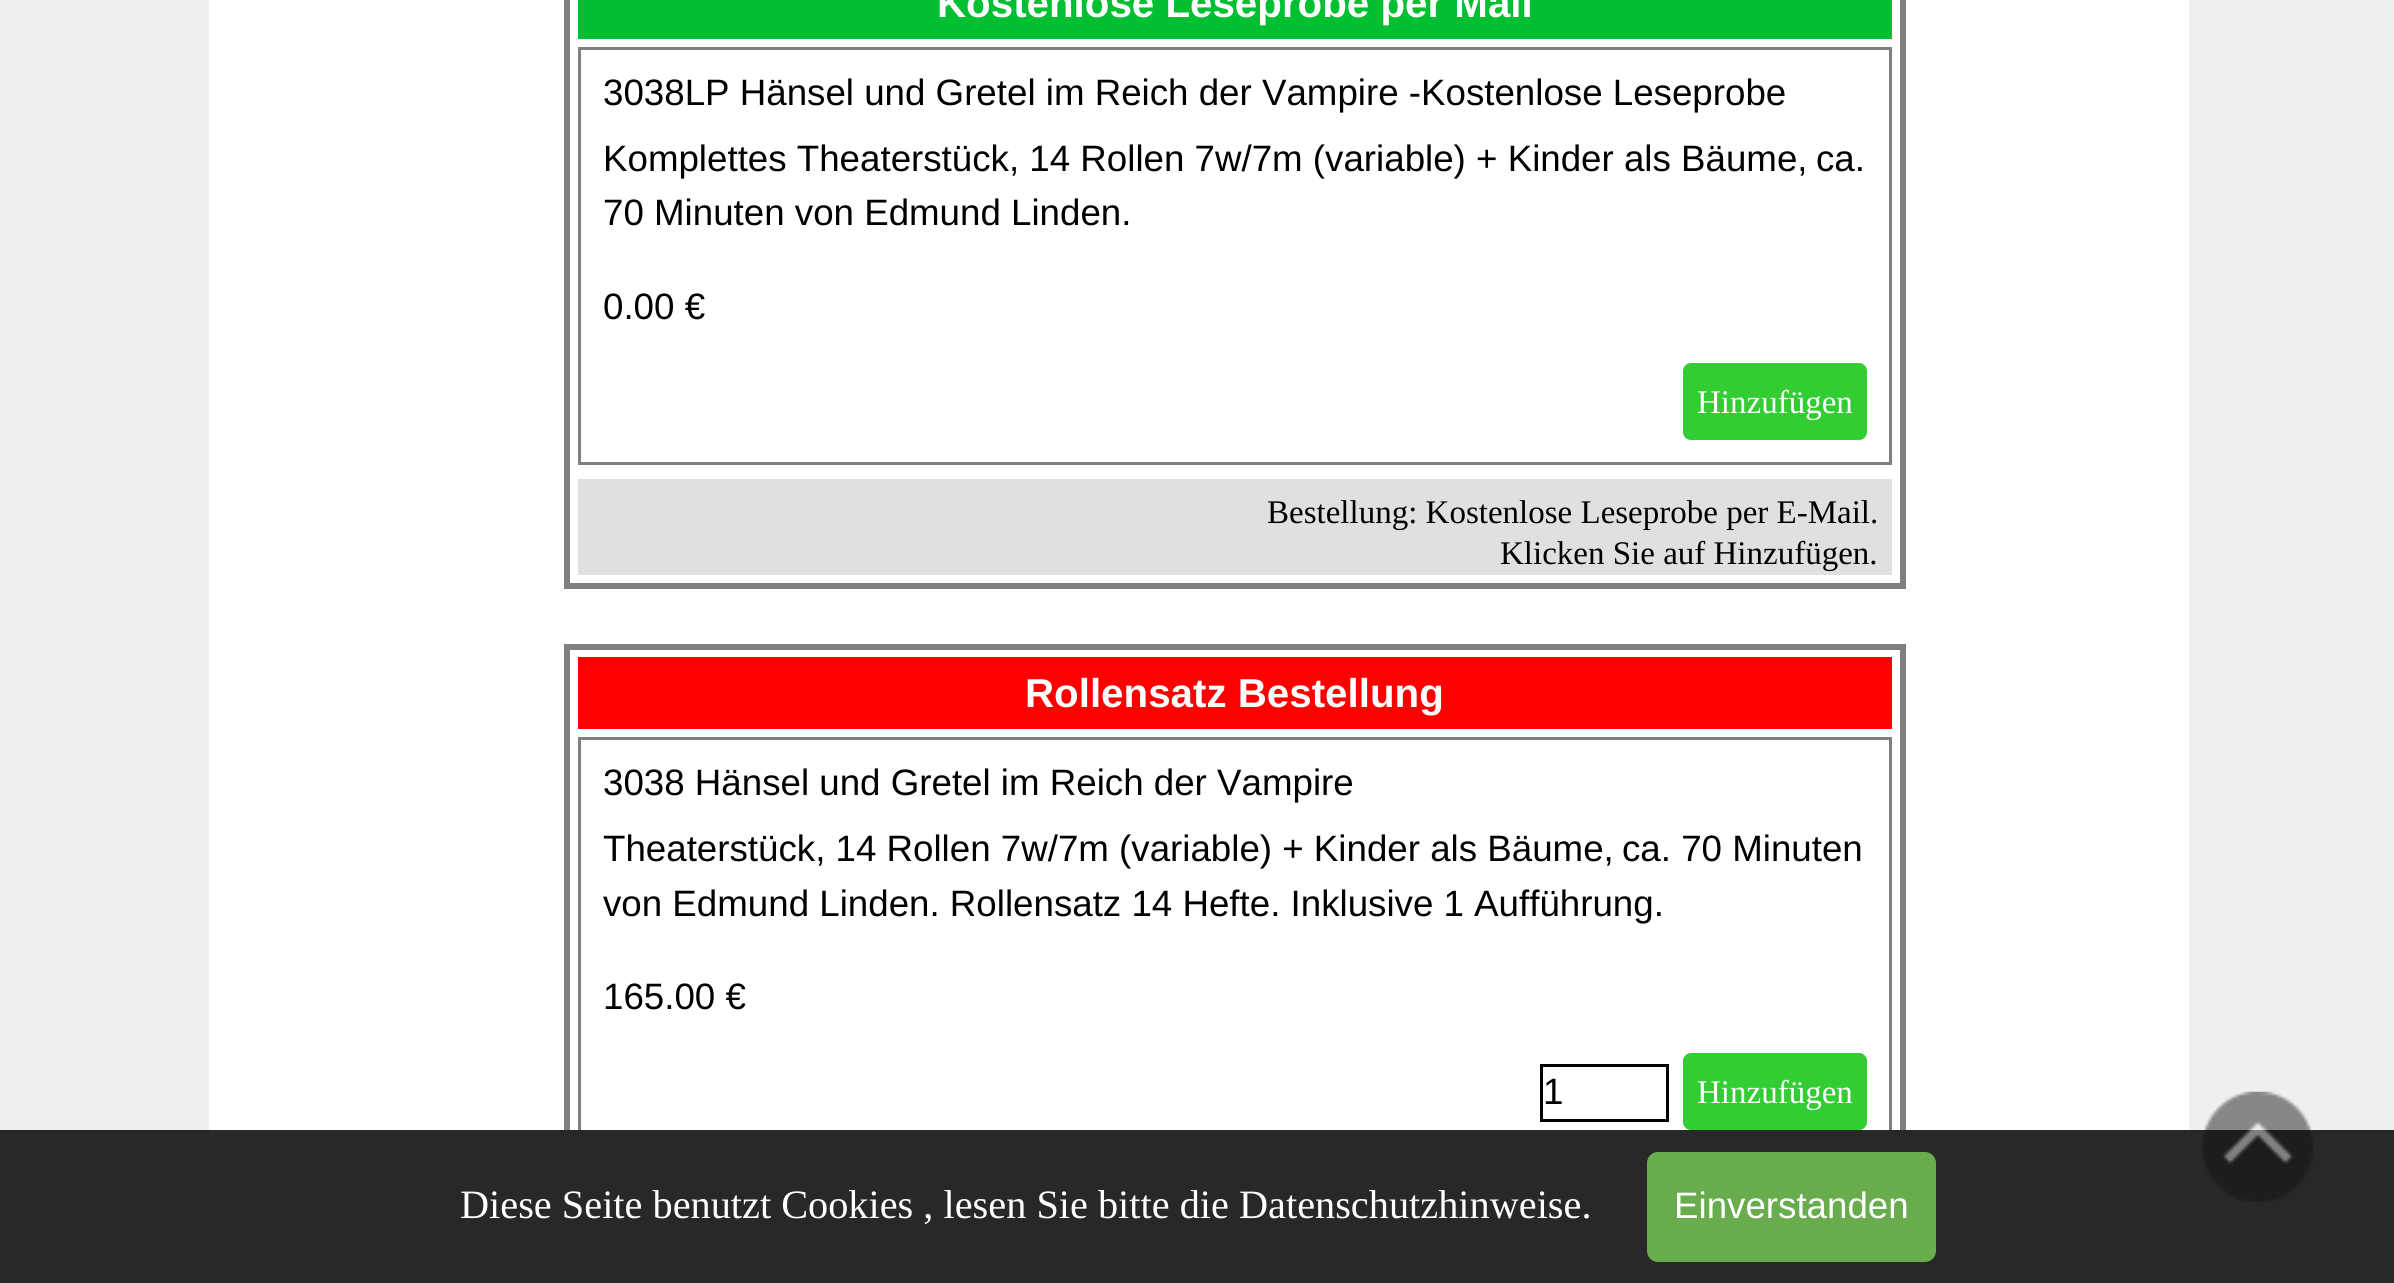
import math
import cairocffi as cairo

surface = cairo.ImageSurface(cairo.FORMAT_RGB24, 2394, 1283)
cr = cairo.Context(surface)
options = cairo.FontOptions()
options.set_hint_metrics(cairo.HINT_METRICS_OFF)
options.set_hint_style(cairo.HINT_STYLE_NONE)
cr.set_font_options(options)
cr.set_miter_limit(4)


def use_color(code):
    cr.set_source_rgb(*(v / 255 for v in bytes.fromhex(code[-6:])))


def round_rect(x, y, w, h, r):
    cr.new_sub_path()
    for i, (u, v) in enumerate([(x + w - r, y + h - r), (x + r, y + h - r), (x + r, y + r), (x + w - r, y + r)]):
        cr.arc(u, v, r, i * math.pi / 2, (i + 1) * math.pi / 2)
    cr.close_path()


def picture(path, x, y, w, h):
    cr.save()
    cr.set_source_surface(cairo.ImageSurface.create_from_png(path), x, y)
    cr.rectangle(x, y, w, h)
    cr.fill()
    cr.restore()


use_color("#efefef")
cr.paint()
use_color("#ffffff")
cr.rectangle(209, 0, 1980, 1130)
cr.fill()
cr.rectangle(567, -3, 1336, 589)
use_color("#808080")
cr.set_line_width(6)
cr.stroke()
use_color("#00bf30")
cr.rectangle(578, 0, 1314, 39)
cr.fill()
cr.select_font_face("Liberation Sans", cairo.FONT_SLANT_NORMAL, cairo.FONT_WEIGHT_BOLD)
cr.set_font_size(40.3)
use_color("#ffffff")
cr.move_to(937, 17)
cr.show_text("Kostenlose Leseprobe per Mail")
cr.rectangle(579.5, 48.5, 1311, 415)
use_color("#808080")
cr.set_line_width(3)
cr.stroke()
cr.select_font_face("Liberation Sans")
cr.set_font_size(36.7)
use_color("#000000")
cr.move_to(603, 105)
cr.show_text("3038LP Hänsel und Gretel im Reich der Vampire -Kostenlose Leseprobe")
cr.move_to(603, 171)
cr.show_text("Komplettes Theaterstück, 14 Rollen 7w/7m (variable) + Kinder als Bäume,")
cr.move_to(1816, 171)
cr.show_text("ca.")
cr.move_to(603, 225)
cr.show_text("70 Minuten von Edmund Linden.")
cr.move_to(603, 319)
cr.show_text("0.00 €")
use_color("#32cd32")
round_rect(1683, 363, 184, 77, 8)
cr.fill()
cr.select_font_face("Liberation Serif")
cr.set_font_size(33)
use_color("#ffffff")
cr.move_to(1697, 413)
cr.show_text("Hinzufügen")
use_color("#e0e0e0")
cr.rectangle(578, 479, 1314, 96)
cr.fill()
use_color("#000000")
cr.move_to(1267, 523)
cr.show_text("Bestellung: Kostenlose Leseprobe per E-Mail.")
cr.move_to(1500, 564)
cr.show_text("Klicken Sie auf Hinzufügen.")
cr.rectangle(567, 647, 1336, 629)
use_color("#808080")
cr.set_line_width(6)
cr.stroke()
use_color("#ff0000")
cr.rectangle(578, 657, 1314, 72)
cr.fill()
cr.select_font_face("Liberation Sans", cairo.FONT_SLANT_NORMAL, cairo.FONT_WEIGHT_BOLD)
cr.set_font_size(40.3)
use_color("#ffffff")
cr.move_to(1025, 707)
cr.show_text("Rollensatz Bestellung")
cr.rectangle(579.5, 738.5, 1311, 415)
use_color("#808080")
cr.set_line_width(3)
cr.stroke()
cr.select_font_face("Liberation Sans")
cr.set_font_size(36.7)
use_color("#000000")
cr.move_to(603, 795)
cr.show_text("3038 Hänsel und Gretel im Reich der Vampire")
cr.move_to(603, 861)
cr.show_text("Theaterstück, 14 Rollen 7w/7m (variable) + Kinder als Bäume,")
cr.move_to(1622, 861)
cr.show_text("ca. 70 Minuten")
cr.move_to(603, 916)
cr.show_text("von Edmund Linden. Rollensatz 14 Hefte. Inklusive 1 Aufführung.")
cr.move_to(603, 1009)
cr.show_text("165.00 €")
cr.rectangle(1541.5, 1065.5, 126, 55)
cr.stroke()
cr.move_to(1543, 1104)
cr.show_text("1")
use_color("#32cd32")
round_rect(1683, 1053, 184, 77, 8)
cr.fill()
cr.select_font_face("Liberation Serif")
cr.set_font_size(33)
use_color("#ffffff")
cr.move_to(1697, 1103)
cr.show_text("Hinzufügen")
use_color("#282828")
cr.rectangle(0, 1130, 2394, 153)
cr.fill()
picture("img1.png", 2203, 1091, 110, 111)
cr.set_font_size(40.3)
use_color("#ffffff")
cr.move_to(460, 1218)
cr.show_text("Diese Seite benutzt Cookies , lesen Sie bitte die Datenschutzhinweise.")
use_color("#69ac4d")
round_rect(1647, 1152, 289, 110, 11)
cr.fill()
cr.select_font_face("Liberation Sans")
cr.set_font_size(36.7)
use_color("#ffffff")
cr.move_to(1674, 1218)
cr.show_text("Einverstanden")
surface.write_to_png("result.png")
